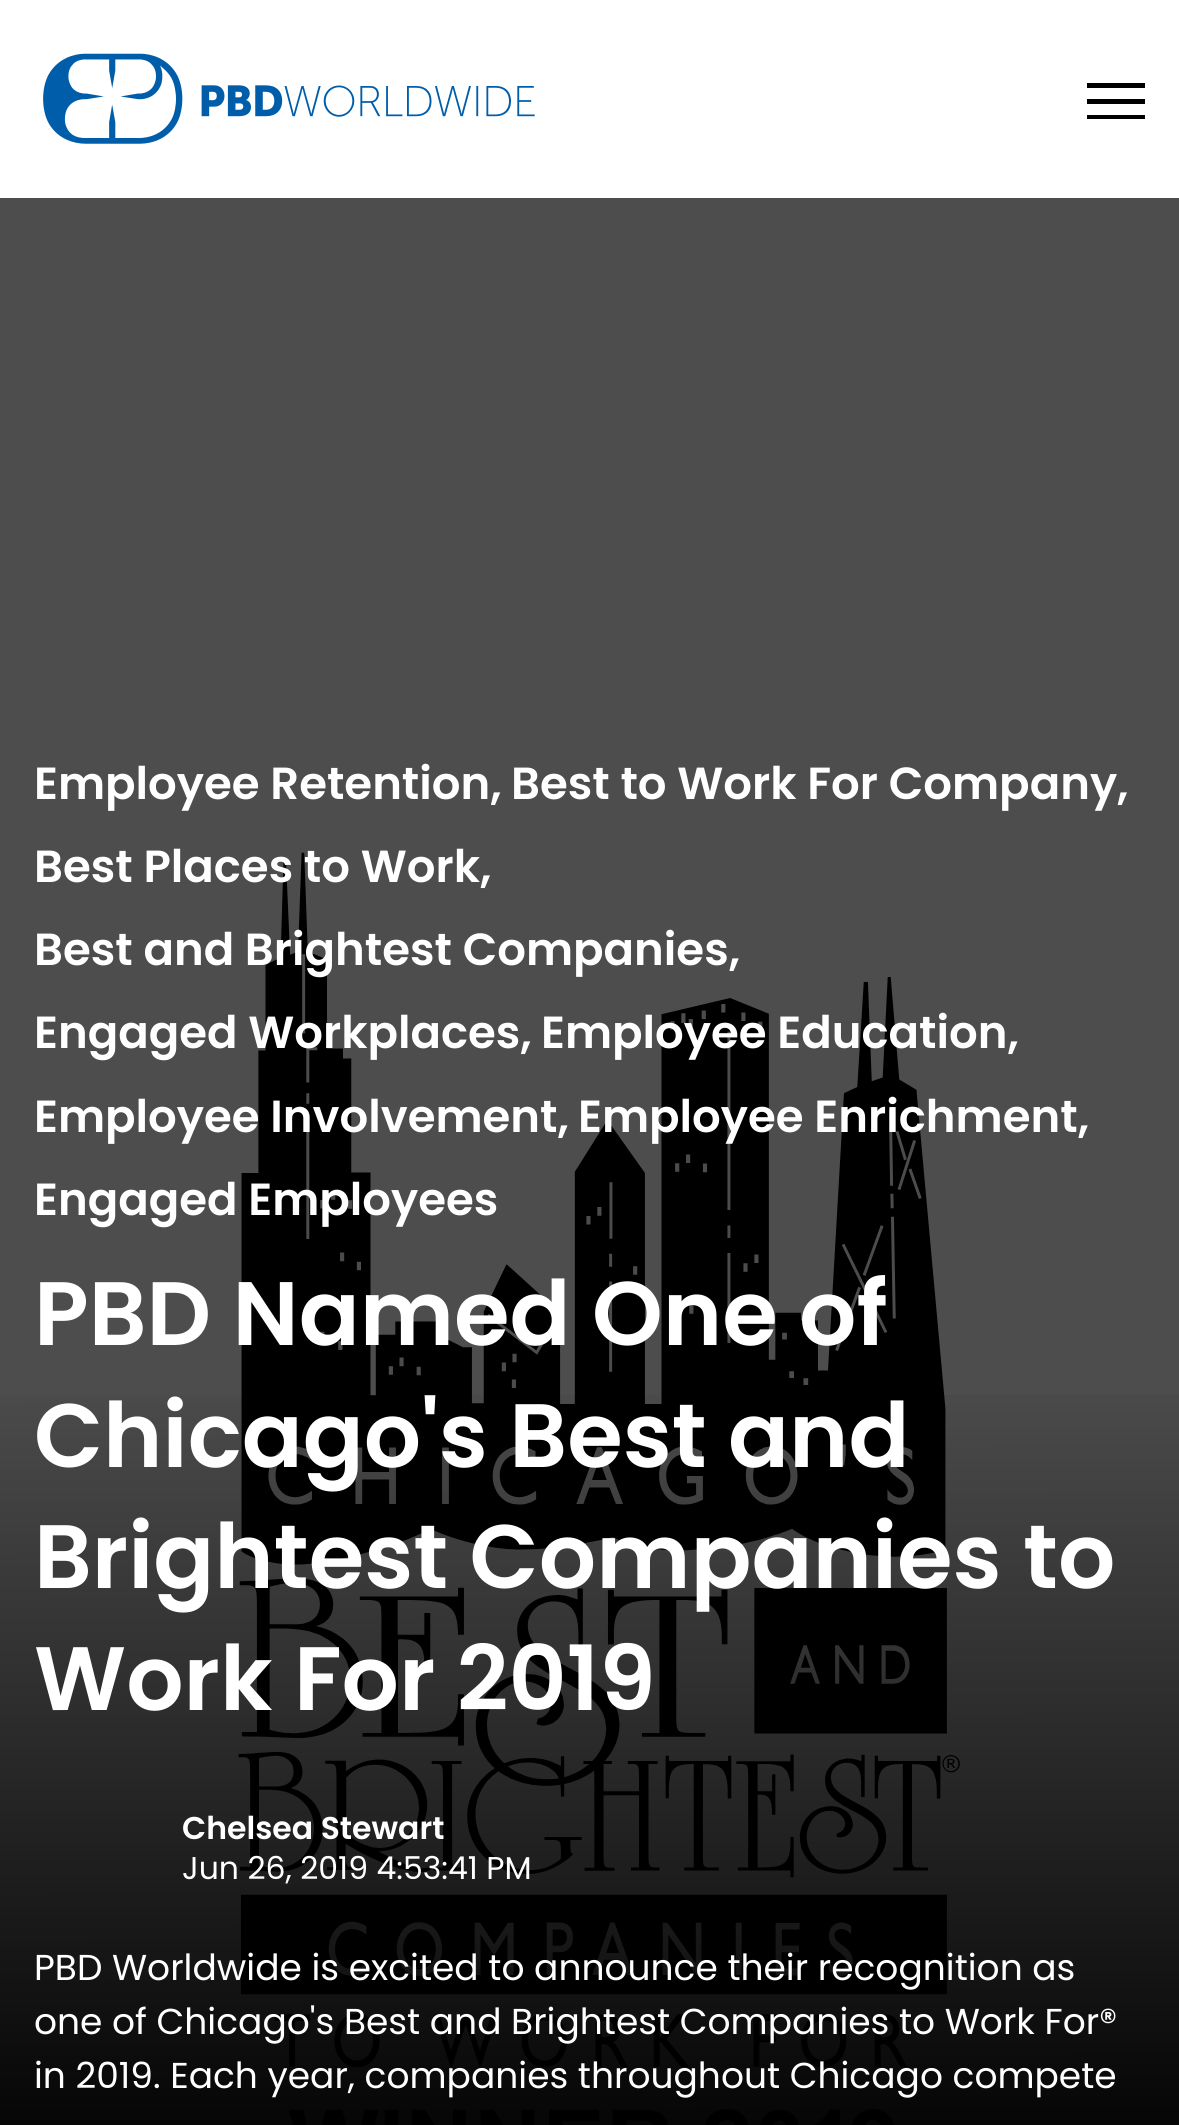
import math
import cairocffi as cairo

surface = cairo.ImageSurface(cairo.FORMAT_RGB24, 1179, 2125)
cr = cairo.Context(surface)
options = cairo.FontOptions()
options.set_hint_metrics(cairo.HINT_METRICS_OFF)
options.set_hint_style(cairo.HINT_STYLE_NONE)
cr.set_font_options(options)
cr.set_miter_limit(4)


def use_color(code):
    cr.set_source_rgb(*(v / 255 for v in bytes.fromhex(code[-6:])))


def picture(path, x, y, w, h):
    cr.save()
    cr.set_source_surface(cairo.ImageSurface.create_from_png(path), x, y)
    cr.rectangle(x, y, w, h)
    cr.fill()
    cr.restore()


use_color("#ffffff")
cr.paint()
use_color("#4d4d4d")
cr.rectangle(0, 198, 1179, 1927)
cr.fill()
picture("img1.png", 43, 53, 492, 91)
use_color("#000000")
cr.rectangle(1087, 83, 58, 5)
cr.fill()
cr.rectangle(1087, 99, 58, 5)
cr.fill()
cr.rectangle(1087, 115, 58, 4)
cr.fill()
picture("img2.png", 238, 852, 722, 1273)
cr.select_font_face("Poppins SemiBold")
cr.set_font_size(45)
use_color("#ffffff")
cr.move_to(34, 799)
cr.show_text("Employee Retention,")
cr.move_to(511, 799)
cr.show_text("Best to Work For Company,")
cr.move_to(34, 882)
cr.show_text("Best Places to Work,")
cr.move_to(34, 965)
cr.show_text("Best and Brightest Companies,")
cr.move_to(34, 1048)
cr.show_text("Engaged Workplaces,")
cr.move_to(541, 1048)
cr.show_text("Employee Education,")
cr.move_to(34, 1132)
cr.show_text("Employee Involvement,")
cr.move_to(578, 1132)
cr.show_text("Employee Enrichment,")
cr.move_to(34, 1215)
cr.show_text("Engaged Employees")
cr.set_font_size(90)
cr.move_to(34, 1345)
cr.show_text("PBD Named One of")
gradient = cairo.LinearGradient(589, 1368, 590, 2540)
gradient.add_color_stop_rgba(0, 0, 0, 0, 0)
gradient.add_color_stop_rgba(0.7, 0, 0, 0, 1)
cr.set_source(gradient)
cr.rectangle(0, 1395, 1179, 730)
cr.fill()
use_color("#ffffff")
cr.move_to(34, 1467)
cr.show_text("Chicago's Best and")
cr.move_to(34, 1588)
cr.show_text("Brightest Companies to")
cr.move_to(34, 1710)
cr.show_text("Work For 2019")
cr.set_font_size(31.5)
cr.move_to(182, 1839)
cr.show_text("Chelsea Stewart")
cr.select_font_face("Poppins")
cr.move_to(182, 1879)
cr.show_text("Jun 26, 2019 4:53:41 PM")
cr.set_font_size(36)
cr.move_to(34, 1980)
cr.show_text("PBD Worldwide is excited to announce their recognition as")
cr.move_to(34, 2034)
cr.show_text("one of Chicago's Best and Brightest Companies to Work For®")
cr.move_to(34, 2088)
cr.show_text("in 2019. Each year, companies throughout Chicago compete")
surface.write_to_png("result.png")
